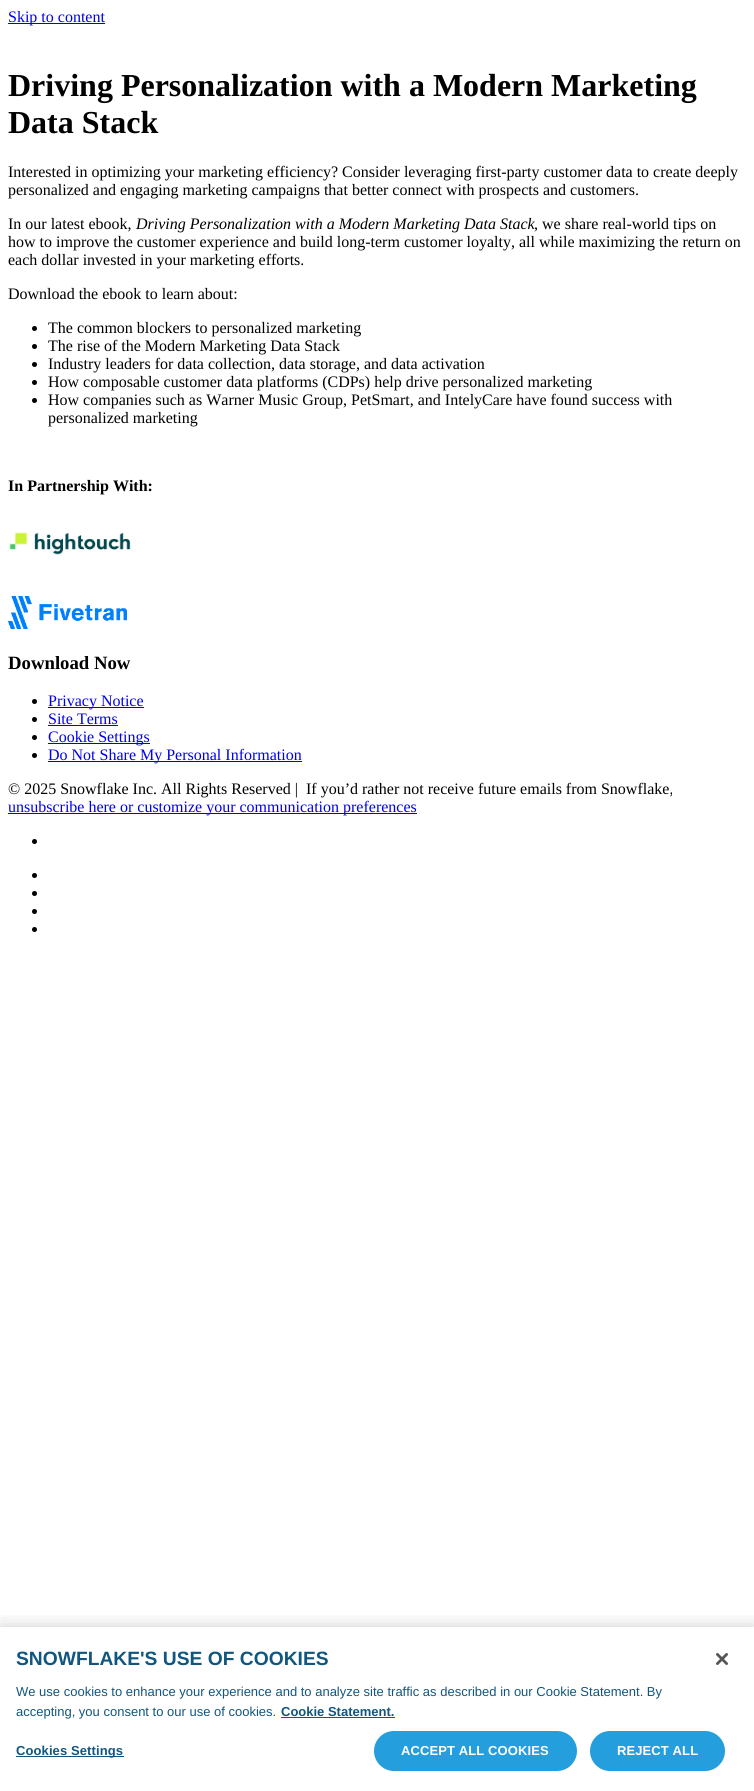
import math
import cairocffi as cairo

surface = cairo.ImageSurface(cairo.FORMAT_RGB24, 754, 1791)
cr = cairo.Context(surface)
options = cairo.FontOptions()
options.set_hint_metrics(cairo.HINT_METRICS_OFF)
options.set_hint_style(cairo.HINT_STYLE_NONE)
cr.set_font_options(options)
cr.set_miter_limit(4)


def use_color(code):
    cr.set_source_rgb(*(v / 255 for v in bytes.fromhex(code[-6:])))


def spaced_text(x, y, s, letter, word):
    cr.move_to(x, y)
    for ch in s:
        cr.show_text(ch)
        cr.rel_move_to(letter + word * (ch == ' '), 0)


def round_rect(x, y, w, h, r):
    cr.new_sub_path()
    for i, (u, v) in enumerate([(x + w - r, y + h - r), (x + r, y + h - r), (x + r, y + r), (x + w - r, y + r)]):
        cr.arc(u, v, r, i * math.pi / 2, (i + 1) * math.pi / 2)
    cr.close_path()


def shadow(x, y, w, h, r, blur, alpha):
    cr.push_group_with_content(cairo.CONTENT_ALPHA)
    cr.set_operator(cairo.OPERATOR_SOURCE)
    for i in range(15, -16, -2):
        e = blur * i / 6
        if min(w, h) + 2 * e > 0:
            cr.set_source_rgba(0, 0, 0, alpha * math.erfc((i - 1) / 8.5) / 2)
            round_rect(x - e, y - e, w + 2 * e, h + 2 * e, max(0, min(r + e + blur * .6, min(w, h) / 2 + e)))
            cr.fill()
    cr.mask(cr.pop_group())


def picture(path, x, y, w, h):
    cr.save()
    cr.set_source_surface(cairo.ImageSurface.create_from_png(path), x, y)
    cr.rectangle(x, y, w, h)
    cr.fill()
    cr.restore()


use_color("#ffffff")
cr.paint()
use_color("#0000ee")
cr.rectangle(8, 23, 97, 1)
cr.fill()
cr.select_font_face("Liberation Serif")
cr.set_font_size(16)
cr.move_to(8, 22)
cr.show_text("Skip to content")
cr.select_font_face("Liberation Serif", cairo.FONT_SLANT_NORMAL, cairo.FONT_WEIGHT_BOLD)
cr.set_font_size(32)
use_color("#000000")
cr.move_to(8, 96)
cr.show_text("Driving Personalization with a Modern Marketing")
cr.move_to(8, 133)
cr.show_text("Data Stack")
cr.select_font_face("Liberation Serif")
cr.set_font_size(16)
cr.move_to(8, 177)
cr.show_text("Interested in optimizing your marketing efficiency? Consider leveraging first-party customer data to create deeply")
cr.move_to(8, 195)
cr.show_text("personalized and engaging marketing campaigns that better connect with prospects and customers.")
cr.move_to(8, 229)
cr.show_text("In our latest ebook,")
cr.select_font_face("Liberation Serif", cairo.FONT_SLANT_ITALIC)
cr.move_to(136, 229)
cr.show_text("Driving Personalization with a Modern Marketing Data Stack")
cr.select_font_face("Liberation Serif")
cr.move_to(534, 229)
cr.show_text(", we share real-world tips on")
cr.move_to(8, 247)
cr.show_text("how to improve the customer experience and build long-term customer loyalty, all while maximizing the return on")
cr.move_to(8, 265)
cr.show_text("each dollar invested in your marketing efforts.")
cr.move_to(8, 299)
cr.show_text("Download the ebook to learn about:")
cr.new_path()
cr.arc(34.5, 328.5, 2.5, 0, 2 * math.pi)
cr.fill()
cr.move_to(48, 333)
cr.show_text("The common blockers to personalized marketing")
cr.new_path()
cr.arc(34.5, 346.5, 2.5, 0, 2 * math.pi)
cr.fill()
cr.move_to(48, 351)
cr.show_text("The rise of the Modern Marketing Data Stack")
cr.new_path()
cr.arc(34.5, 364.5, 2.5, 0, 2 * math.pi)
cr.fill()
cr.move_to(48, 369)
cr.show_text("Industry leaders for data collection, data storage, and data activation")
cr.new_path()
cr.arc(34.5, 382.5, 2.5, 0, 2 * math.pi)
cr.fill()
cr.move_to(48, 387)
cr.show_text("How composable customer data platforms (CDPs) help drive personalized marketing")
cr.new_path()
cr.arc(34.5, 400.5, 2.5, 0, 2 * math.pi)
cr.fill()
cr.move_to(48, 405)
cr.show_text("How companies such as Warner Music Group, PetSmart, and IntelyCare have found success with")
cr.move_to(48, 423)
cr.show_text("personalized marketing")
cr.select_font_face("Liberation Serif", cairo.FONT_SLANT_NORMAL, cairo.FONT_WEIGHT_BOLD)
cr.move_to(8, 491)
cr.show_text("In Partnership With:")
picture("img1.png", 9, 532, 122, 23)
picture("img2.png", 8, 596, 119, 33)
cr.set_font_size(18.75)
cr.move_to(8, 669)
cr.show_text("Download Now")
cr.new_path()
cr.arc(34.5, 701.5, 2.5, 0, 2 * math.pi)
cr.fill()
use_color("#0000ee")
cr.rectangle(48, 707, 96, 1)
cr.fill()
cr.select_font_face("Liberation Serif")
cr.set_font_size(16)
cr.move_to(48, 706)
cr.show_text("Privacy Notice")
use_color("#000000")
cr.new_path()
cr.arc(34.5, 719.5, 2.5, 0, 2 * math.pi)
cr.fill()
use_color("#0000ee")
cr.move_to(48, 724)
cr.show_text("Site Terms")
cr.rectangle(48, 725, 70, 1)
cr.fill()
use_color("#000000")
cr.arc(34.5, 737.5, 2.5, 0, 2 * math.pi)
cr.fill()
use_color("#0000ee")
cr.rectangle(48, 743, 102, 1)
cr.fill()
cr.move_to(48, 742)
cr.show_text("Cookie Settings")
use_color("#000000")
cr.new_path()
cr.arc(34.5, 755.5, 2.5, 0, 2 * math.pi)
cr.fill()
use_color("#0000ee")
cr.rectangle(48, 761, 254, 1)
cr.fill()
cr.move_to(48, 760)
cr.show_text("Do Not Share My Personal Information")
use_color("#000000")
cr.move_to(8, 794)
cr.show_text("© 2025 Snowflake Inc. All Rights Reserved |  If you’d rather not receive future emails from Snowflake,")
use_color("#0000ee")
cr.rectangle(8, 813, 409, 1)
cr.fill()
cr.move_to(8, 812)
cr.show_text("unsubscribe here or customize your communication preferences")
use_color("#000000")
cr.new_path()
cr.arc(34.5, 841.5, 2.5, 0, 2 * math.pi)
cr.fill()
cr.arc(34.5, 875.5, 2.5, 0, 2 * math.pi)
cr.fill()
cr.arc(34.5, 893.5, 2.5, 0, 2 * math.pi)
cr.fill()
cr.arc(34.5, 911.5, 2.5, 0, 2 * math.pi)
cr.fill()
cr.arc(34.5, 929.5, 2.5, 0, 2 * math.pi)
cr.fill()
cr.save()
cr.rectangle(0, 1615, 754, 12)
cr.clip()
use_color("#000000")
shadow(0, 1627, 754, 164, 0, 9, 0.2)
cr.restore()
cr.select_font_face("Liberation Sans", cairo.FONT_SLANT_NORMAL, cairo.FONT_WEIGHT_BOLD)
cr.set_font_size(19.25)
use_color("#11567f")
cr.move_to(16, 1665)
cr.show_text("SNOWFLAKE'S USE OF COOKIES")
cr.select_font_face("Liberation Sans")
cr.set_font_size(13)
cr.move_to(16, 1696)
cr.show_text("We use cookies to enhance your experience and to analyze site traffic as described in our Cookie Statement. By")
cr.move_to(16, 1716)
cr.show_text("accepting, you consent to our use of cookies.")
cr.select_font_face("Liberation Sans", cairo.FONT_SLANT_NORMAL, cairo.FONT_WEIGHT_BOLD)
cr.move_to(281, 1716)
cr.show_text("Cookie Statement.")
cr.rectangle(281, 1717, 114, 1)
cr.fill()
cr.rectangle(16, 1756, 108, 1)
cr.fill()
spaced_text(16, 1755, "Cookies Settings", 0.1, 0)
use_color("#249edc")
round_rect(374, 1731, 203, 40, 20)
cr.fill()
use_color("#ffffff")
spaced_text(401, 1755, "ACCEPT ALL COOKIES", 0.1, 0)
use_color("#249edc")
round_rect(590, 1731, 135, 40, 20)
cr.fill()
use_color("#ffffff")
spaced_text(617, 1755, "REJECT ALL", 0.1, 0)
picture("img3.png", 716, 1653, 12, 12)
surface.write_to_png("result.png")
